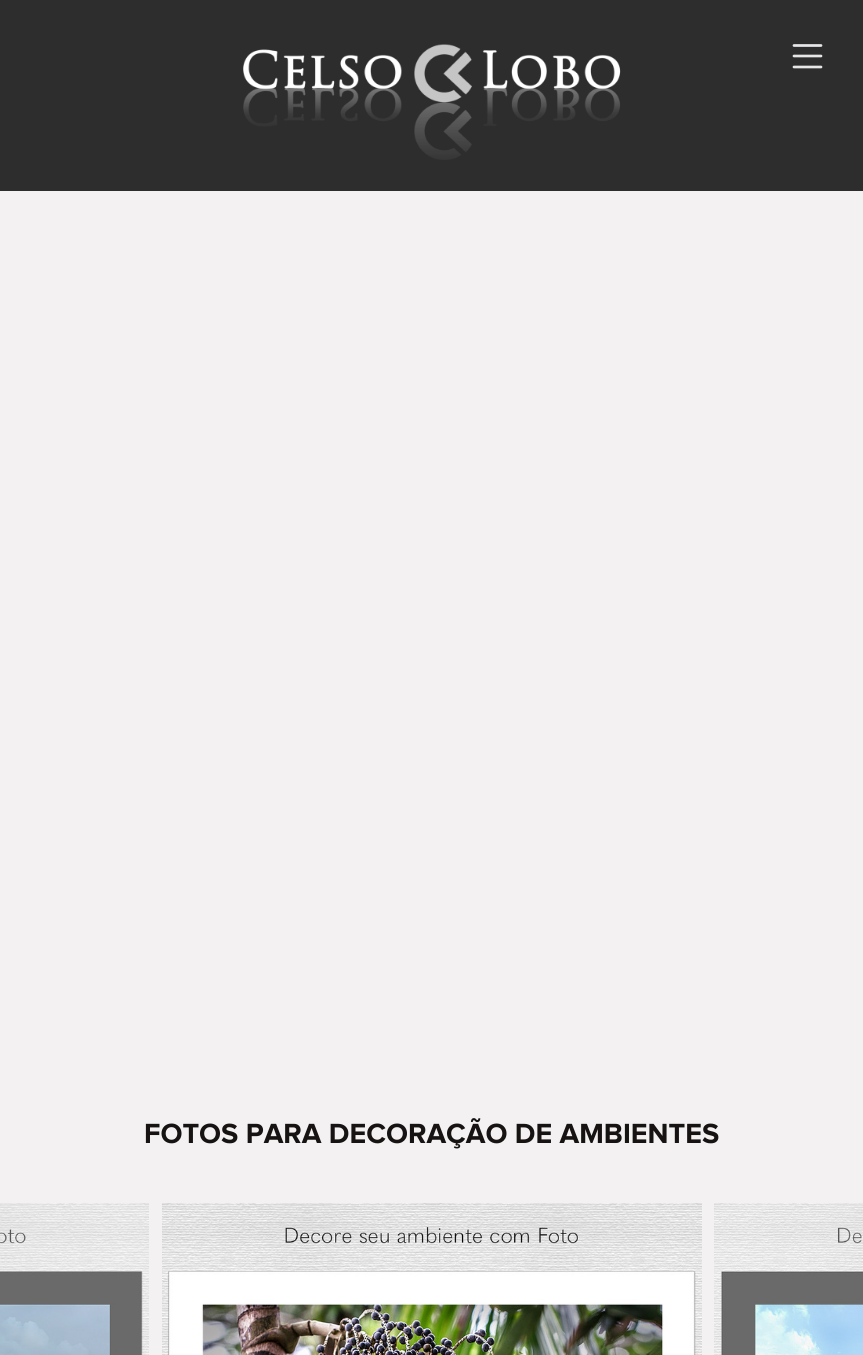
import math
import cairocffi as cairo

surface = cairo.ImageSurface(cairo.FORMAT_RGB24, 863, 1355)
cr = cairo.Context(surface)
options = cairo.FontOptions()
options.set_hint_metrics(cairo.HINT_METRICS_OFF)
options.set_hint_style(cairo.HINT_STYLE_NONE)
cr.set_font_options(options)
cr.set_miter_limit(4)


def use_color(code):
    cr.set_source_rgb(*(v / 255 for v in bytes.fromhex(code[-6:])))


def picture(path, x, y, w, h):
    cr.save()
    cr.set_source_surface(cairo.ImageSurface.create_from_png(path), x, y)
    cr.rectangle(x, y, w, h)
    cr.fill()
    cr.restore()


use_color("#f3f1f1")
cr.paint()
use_color("#2e2d2d")
cr.rectangle(0, 0, 863, 191)
cr.fill()
picture("img1.png", 243, 44, 378, 116)
cr.new_path()
cr.move_to(794, 45.5)
cr.line_to(821, 45.5)
cr.move_to(794, 56)
cr.line_to(821, 56)
cr.move_to(794, 67)
cr.line_to(821, 67)
use_color("#e6e6e8")
cr.set_line_width(2.7)
cr.set_line_cap(cairo.LINE_CAP_ROUND)
cr.stroke()
cr.select_font_face("Proxima Nova", cairo.FONT_SLANT_NORMAL, cairo.FONT_WEIGHT_BOLD)
cr.set_font_size(28.75)
use_color("#171313")
cr.move_to(144, 1143)
cr.show_text("FOTOS PARA DECORAÇÃO DE AMBIENTES")
picture("img2.png", 0, 1203, 149, 152)
picture("img3.png", 162, 1203, 540, 152)
picture("img4.png", 714, 1203, 149, 152)
surface.write_to_png("result.png")
